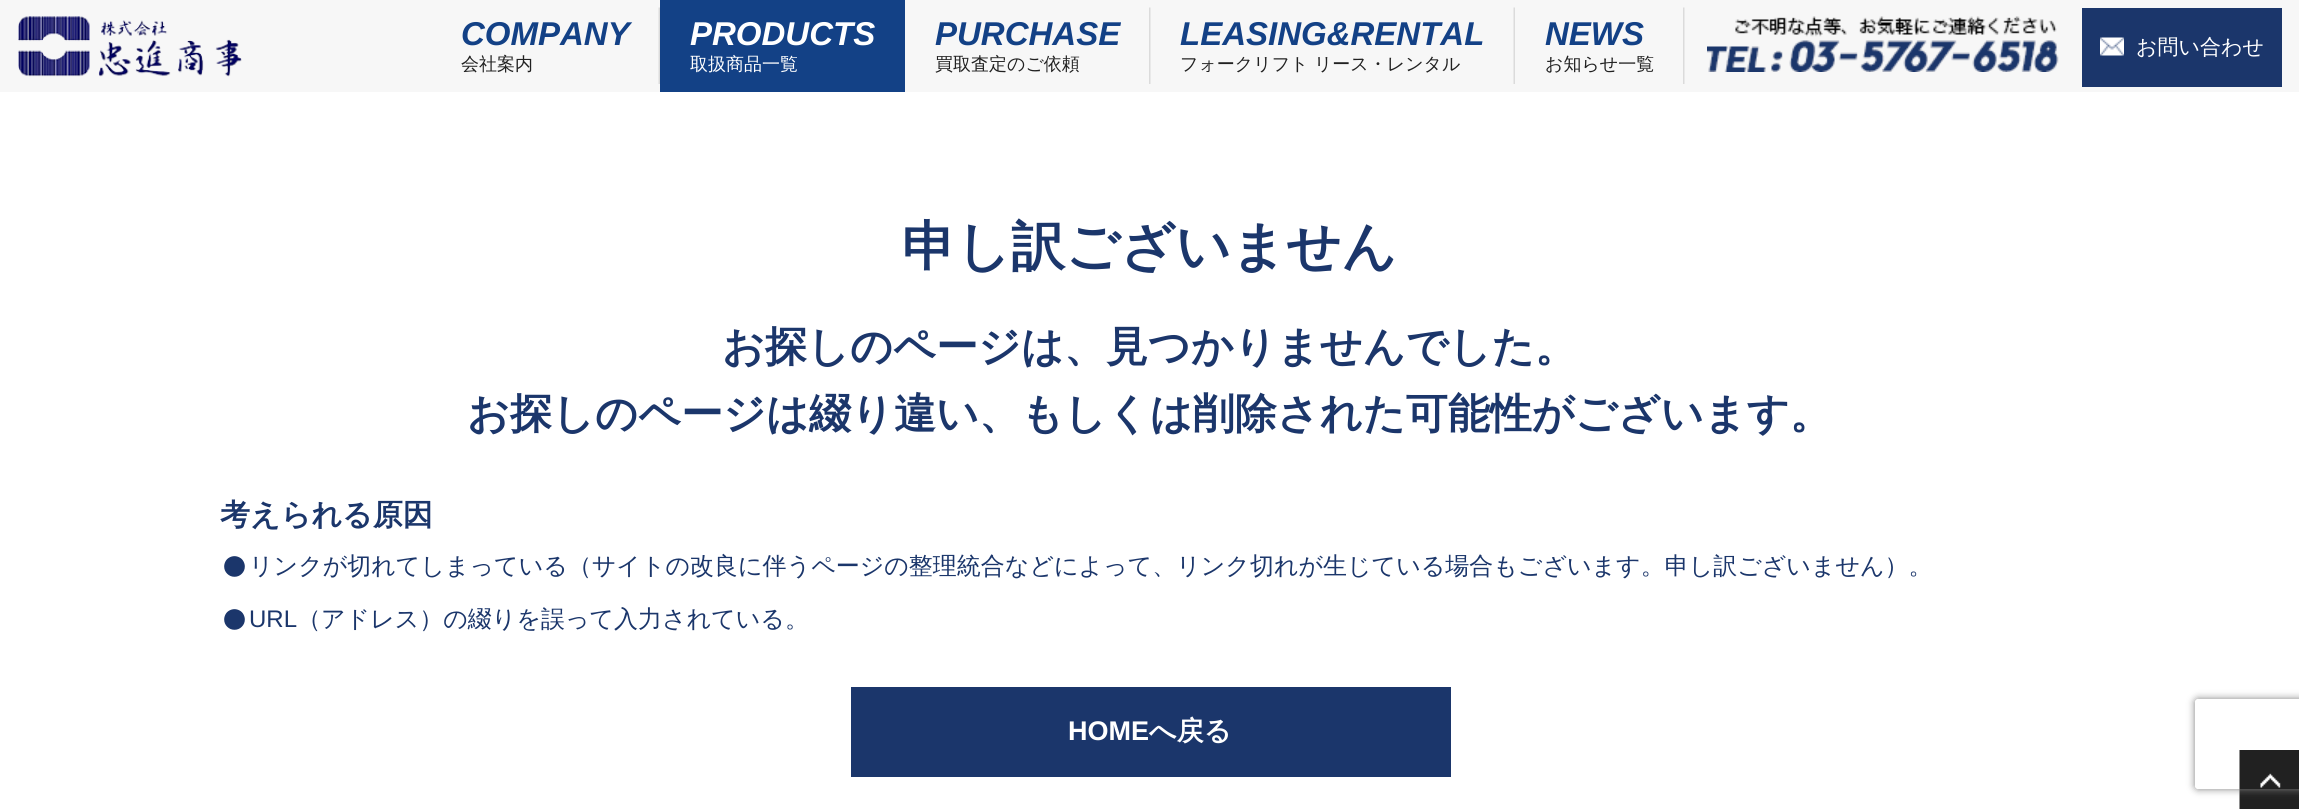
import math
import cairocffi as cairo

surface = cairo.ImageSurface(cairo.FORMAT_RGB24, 2299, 809)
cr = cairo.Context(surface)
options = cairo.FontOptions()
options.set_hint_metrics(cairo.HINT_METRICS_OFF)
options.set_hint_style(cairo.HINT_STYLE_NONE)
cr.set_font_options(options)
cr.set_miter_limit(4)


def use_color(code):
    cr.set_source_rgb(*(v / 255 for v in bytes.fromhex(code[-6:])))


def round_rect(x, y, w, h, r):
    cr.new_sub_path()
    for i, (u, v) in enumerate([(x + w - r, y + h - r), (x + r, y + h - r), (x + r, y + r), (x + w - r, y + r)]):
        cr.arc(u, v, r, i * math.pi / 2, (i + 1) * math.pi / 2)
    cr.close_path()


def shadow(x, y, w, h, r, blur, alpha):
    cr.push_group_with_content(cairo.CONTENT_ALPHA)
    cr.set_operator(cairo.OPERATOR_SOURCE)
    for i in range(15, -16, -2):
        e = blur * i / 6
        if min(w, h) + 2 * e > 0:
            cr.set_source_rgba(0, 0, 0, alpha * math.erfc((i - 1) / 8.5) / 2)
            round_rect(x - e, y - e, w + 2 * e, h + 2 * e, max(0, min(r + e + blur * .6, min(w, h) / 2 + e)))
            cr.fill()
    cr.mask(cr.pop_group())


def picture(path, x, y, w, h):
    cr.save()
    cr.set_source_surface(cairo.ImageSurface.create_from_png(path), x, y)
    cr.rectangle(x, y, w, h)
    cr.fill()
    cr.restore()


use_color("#ffffff")
cr.paint()
use_color("#f7f7f7")
cr.rectangle(0, 0, 2299, 92)
cr.fill()
picture("img1.png", 18, 16, 224, 61)
picture("img2.png", 658, 7, 2, 77)
cr.select_font_face("Liberation Sans", cairo.FONT_SLANT_ITALIC, cairo.FONT_WEIGHT_BOLD)
cr.set_font_size(33)
use_color("#134186")
cr.move_to(461, 45)
cr.show_text("COMPANY")
cr.select_font_face("WenQuanYi Zen Hei Medium")
cr.set_font_size(18)
use_color("#212121")
cr.move_to(461, 70)
cr.show_text("会社案内")
use_color("#134186")
cr.rectangle(660, 0, 245, 92)
cr.fill()
cr.select_font_face("Liberation Sans", cairo.FONT_SLANT_ITALIC, cairo.FONT_WEIGHT_BOLD)
cr.set_font_size(33)
use_color("#ffffff")
cr.move_to(690, 45)
cr.show_text("PRODUCTS")
cr.select_font_face("WenQuanYi Zen Hei Medium")
cr.set_font_size(18)
cr.move_to(690, 70)
cr.show_text("取扱商品一覧")
picture("img3.png", 1149, 7, 2, 77)
cr.select_font_face("Liberation Sans", cairo.FONT_SLANT_ITALIC, cairo.FONT_WEIGHT_BOLD)
cr.set_font_size(33)
use_color("#134186")
cr.move_to(935, 45)
cr.show_text("PURCHASE")
cr.select_font_face("WenQuanYi Zen Hei Medium")
cr.set_font_size(18)
use_color("#212121")
cr.move_to(935, 70)
cr.show_text("買取査定のご依頼")
picture("img2.png", 1513, 7, 2, 77)
cr.select_font_face("Liberation Sans", cairo.FONT_SLANT_ITALIC, cairo.FONT_WEIGHT_BOLD)
cr.set_font_size(33)
use_color("#134186")
cr.move_to(1180, 45)
cr.show_text("LEASING&RENTAL")
cr.select_font_face("WenQuanYi Zen Hei Medium")
cr.set_font_size(18)
use_color("#212121")
cr.move_to(1180, 70)
cr.show_text("フォークリフト リース・レンタル")
picture("img3.png", 1683, 7, 2, 77)
cr.select_font_face("Liberation Sans", cairo.FONT_SLANT_ITALIC, cairo.FONT_WEIGHT_BOLD)
cr.set_font_size(33)
use_color("#134186")
cr.move_to(1545, 45)
cr.show_text("NEWS")
cr.select_font_face("WenQuanYi Zen Hei Medium")
cr.set_font_size(18)
use_color("#212121")
cr.move_to(1545, 70)
cr.show_text("お知らせ一覧")
picture("img4.png", 1707, 16, 352, 56)
use_color("#1b366b")
cr.rectangle(2082, 8, 200, 79)
cr.fill()
picture("img5.png", 2100, 37, 24, 19)
cr.set_font_size(21)
use_color("#ffffff")
cr.move_to(2136, 54)
cr.show_text("お問い合わせ")
cr.select_font_face("WenQuanYi Zen Hei", cairo.FONT_SLANT_NORMAL, cairo.FONT_WEIGHT_BOLD)
cr.set_font_size(54)
use_color("#1b366b")
cr.move_to(902, 265)
cr.show_text("申し訳ございません")
cr.set_font_size(42)
cr.move_to(722, 361)
cr.show_text("お探しのページは、見つかりませんでした。")
cr.move_to(467, 428)
cr.show_text("お探しのページは綴り違い、もしくは削除された可能性がございます。")
cr.set_font_size(30)
cr.move_to(220, 525)
cr.show_text("考えられる原因")
cr.select_font_face("Liberation Sans")
cr.set_font_size(48)
cr.move_to(220, 580)
cr.show_text("●")
cr.select_font_face("WenQuanYi Zen Hei Medium")
cr.set_font_size(24)
cr.move_to(249, 574)
cr.show_text("リンクが切れてしまっている（サイトの改良に伴うページの整理統合などによって、リンク切れが生じている場合もございます。申し訳ございません）。")
cr.select_font_face("Liberation Sans")
cr.set_font_size(48)
cr.move_to(220, 633)
cr.show_text("●")
cr.set_font_size(24)
cr.move_to(249, 627)
cr.show_text("URL")
cr.select_font_face("WenQuanYi Zen Hei Medium")
cr.move_to(297, 627)
cr.show_text("（アドレス）の綴りを誤って入力されている。")
cr.rectangle(851, 687, 600, 90)
cr.fill()
cr.select_font_face("Liberation Sans", cairo.FONT_SLANT_NORMAL, cairo.FONT_WEIGHT_BOLD)
cr.set_font_size(27)
use_color("#ffffff")
cr.move_to(1068, 740)
cr.show_text("HOME")
cr.select_font_face("WenQuanYi Zen Hei", cairo.FONT_SLANT_NORMAL, cairo.FONT_WEIGHT_BOLD)
cr.move_to(1149, 740)
cr.show_text("へ戻る")
picture("img6.png", 2239, 750, 60, 59)
cr.save()
cr.set_fill_rule(cairo.FILL_RULE_EVEN_ODD)
cr.new_path()
cr.move_to(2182, 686)
cr.line_to(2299, 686)
cr.line_to(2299, 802)
cr.line_to(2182, 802)
cr.close_path()
cr.move_to(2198, 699)
cr.line_to(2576, 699)
cr.curve_to(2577.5, 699, 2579, 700.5, 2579, 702)
cr.line_to(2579, 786)
cr.curve_to(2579, 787.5, 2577.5, 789, 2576, 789)
cr.line_to(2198, 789)
cr.curve_to(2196.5, 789, 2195, 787.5, 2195, 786)
cr.line_to(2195, 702)
cr.curve_to(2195, 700.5, 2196.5, 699, 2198, 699)
cr.close_path()
cr.clip()
use_color("#808080")
shadow(2195, 699, 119, 90, 3, 4, 1)
cr.restore()
surface.write_to_png("result.png")
